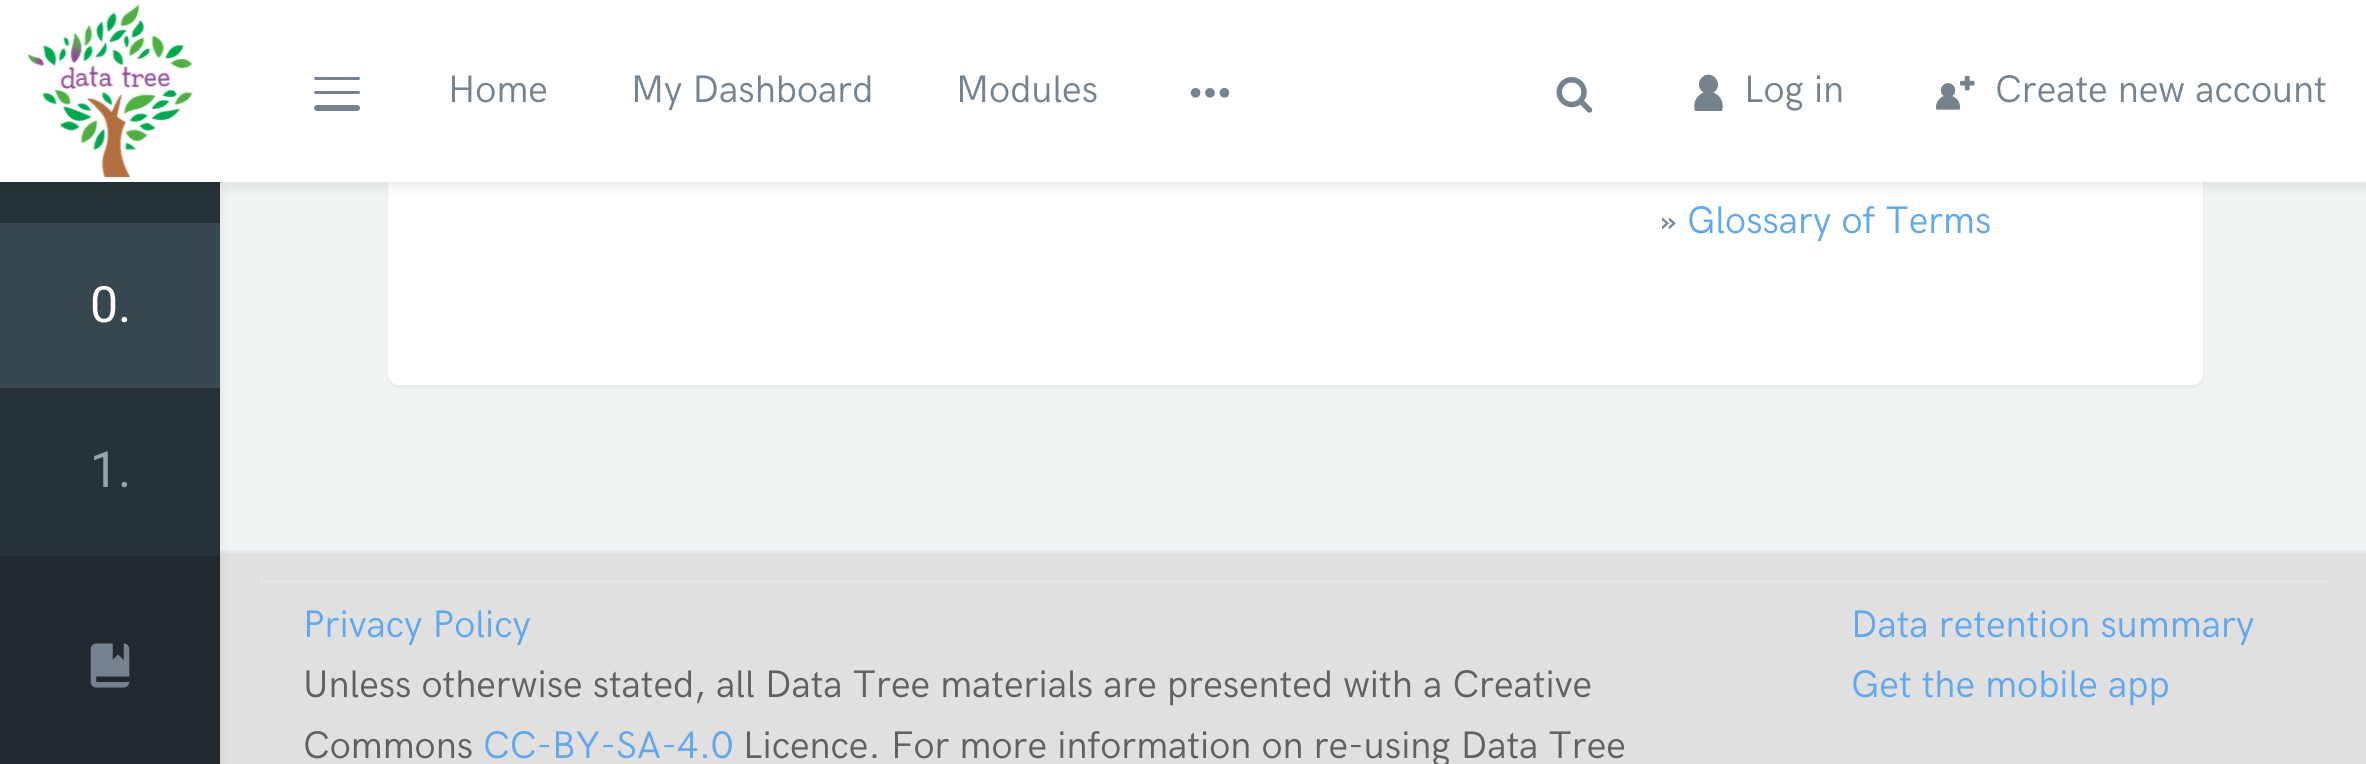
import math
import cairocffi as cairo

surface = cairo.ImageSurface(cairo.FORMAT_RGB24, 2366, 764)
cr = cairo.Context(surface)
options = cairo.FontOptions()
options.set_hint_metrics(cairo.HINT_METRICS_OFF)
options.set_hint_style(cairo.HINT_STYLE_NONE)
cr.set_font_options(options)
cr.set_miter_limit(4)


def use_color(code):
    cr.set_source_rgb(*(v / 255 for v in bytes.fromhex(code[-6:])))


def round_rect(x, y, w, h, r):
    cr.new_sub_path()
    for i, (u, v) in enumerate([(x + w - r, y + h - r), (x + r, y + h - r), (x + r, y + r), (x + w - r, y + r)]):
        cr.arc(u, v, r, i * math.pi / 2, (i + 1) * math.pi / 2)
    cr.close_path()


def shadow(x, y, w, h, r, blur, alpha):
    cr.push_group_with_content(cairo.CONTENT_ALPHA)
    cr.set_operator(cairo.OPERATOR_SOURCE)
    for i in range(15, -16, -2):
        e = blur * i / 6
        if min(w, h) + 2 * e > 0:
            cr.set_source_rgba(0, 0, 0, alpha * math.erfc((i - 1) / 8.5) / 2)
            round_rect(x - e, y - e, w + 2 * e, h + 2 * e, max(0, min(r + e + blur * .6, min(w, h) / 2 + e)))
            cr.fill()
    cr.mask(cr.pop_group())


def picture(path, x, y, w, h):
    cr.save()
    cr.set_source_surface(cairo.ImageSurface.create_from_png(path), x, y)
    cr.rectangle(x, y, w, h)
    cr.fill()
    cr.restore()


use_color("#e0e0e0")
cr.paint()
use_color("#f1f4f5")
cr.rectangle(220, 182, 2146, 368)
cr.fill()
use_color("#000000")
shadow(388, -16, 1815, 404, 11, 1.5, 0.05)
use_color("#ffffff")
round_rect(388, -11, 1815, 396, 11)
cr.fill()
use_color("#e4eaec")
cr.rectangle(220, 550, 2146, 3)
cr.fill()
use_color("#000000")
shadow(0, 187, 220, 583, 0, 5.5, 0.08)
use_color("#263238")
cr.rectangle(0, 182, 220, 374)
cr.fill()
use_color("#000000")
shadow(0, 6, 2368, 181, 0, 5.5, 0.08)
use_color("#ffffff")
cr.rectangle(0, 0, 2366, 182)
cr.fill()
picture("img1.png", 27, 4, 166, 174)
use_color("#76838f")
round_rect(314, 77, 46, 3, 1.5)
cr.fill()
round_rect(314, 91, 46, 3, 1.5)
cr.fill()
round_rect(314, 105, 46, 6, 3)
cr.fill()
cr.select_font_face("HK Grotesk")
cr.set_font_size(38.5)
cr.move_to(448, 102)
cr.show_text("Home")
cr.move_to(631, 102)
cr.show_text("My Dashboard")
cr.move_to(956, 102)
cr.show_text("Modules")
picture("img2.png", 1190, 88, 40, 10)
picture("img3.png", 1556, 77, 37, 36)
cr.new_path()
cr.move_to(1695, 111)
cr.curve_to(1692.5, 103.5, 1696, 95.5, 1703.5, 92.5)
cr.curve_to(1700.5, 90.5, 1698.5, 87, 1699, 83.5)
cr.curve_to(1699, 81, 1700.5, 78.5, 1702.5, 77)
cr.curve_to(1712.5, 68.5, 1725, 85, 1713.5, 92.5)
cr.curve_to(1721, 95.5, 1724.5, 103.5, 1722, 111)
cr.close_path()
cr.fill()
cr.move_to(1744, 102)
cr.show_text("Log in")
picture("img4.png", 1936, 76, 39, 34)
cr.move_to(1995, 102)
cr.show_text("Create new account")
cr.move_to(1659, 233)
cr.show_text("»")
use_color("#62a8eb")
cr.move_to(1687, 233)
cr.show_text("Glossary of Terms")
use_color("#37474f")
cr.rectangle(0, 223, 220, 165)
cr.fill()
cr.select_font_face("Roboto")
cr.set_font_size(50)
use_color("#ffffff")
cr.move_to(90, 322)
cr.show_text("0.")
use_color("#97a3aa")
cr.move_to(90, 487)
cr.show_text("1.")
use_color("#21292e")
cr.rectangle(0, 556, 220, 208)
cr.fill()
picture("img5.png", 90, 643, 40, 45)
use_color("#e5e5e5")
cr.rectangle(261, 580, 2066, 3)
cr.fill()
cr.select_font_face("HK Grotesk")
cr.set_font_size(38.5)
use_color("#62a8eb")
cr.move_to(303, 637)
cr.show_text("Privacy Policy")
use_color("#616161")
cr.move_to(303, 697)
cr.show_text("Unless otherwise stated, all Data Tree materials are presented with a Creative")
cr.move_to(303, 758)
cr.show_text("Commons")
use_color("#62a8eb")
cr.move_to(483, 758)
cr.show_text("CC-BY-SA-4.0")
use_color("#616161")
cr.move_to(743, 758)
cr.show_text("Licence. For more information on re-using Data Tree")
use_color("#62a8eb")
cr.move_to(1851, 637)
cr.show_text("Data retention summary")
cr.move_to(1851, 697)
cr.show_text("Get the mobile app")
surface.write_to_png("result.png")
